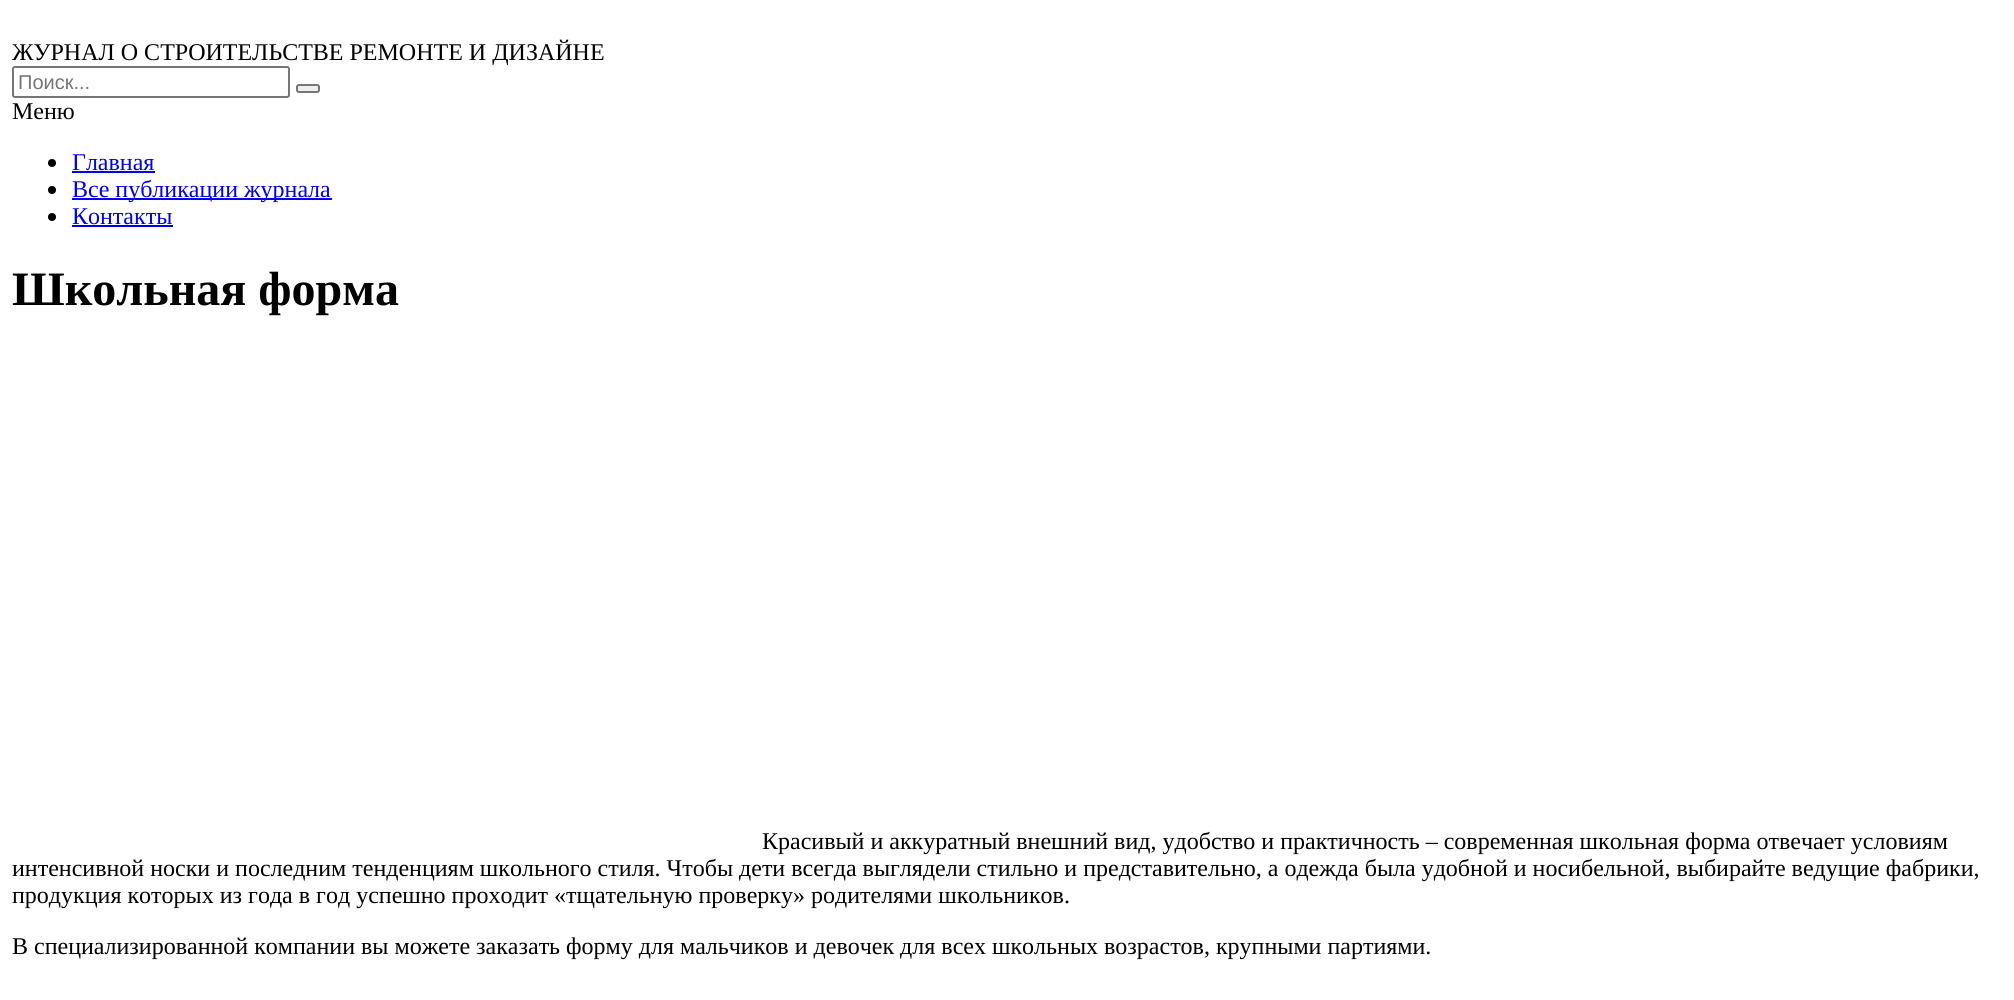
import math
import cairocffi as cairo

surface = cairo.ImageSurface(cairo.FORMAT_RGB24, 2014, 1000)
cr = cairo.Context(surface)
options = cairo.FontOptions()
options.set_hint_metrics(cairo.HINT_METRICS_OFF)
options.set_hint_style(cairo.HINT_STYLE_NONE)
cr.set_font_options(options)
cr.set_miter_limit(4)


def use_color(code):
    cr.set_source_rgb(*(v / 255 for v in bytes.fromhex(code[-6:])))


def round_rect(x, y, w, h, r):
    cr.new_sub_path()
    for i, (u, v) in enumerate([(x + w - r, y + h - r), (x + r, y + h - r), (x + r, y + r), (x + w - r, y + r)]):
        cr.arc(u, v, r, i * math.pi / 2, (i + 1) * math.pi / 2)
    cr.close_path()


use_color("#ffffff")
cr.paint()
cr.select_font_face("Liberation Serif")
cr.set_font_size(24)
use_color("#000000")
cr.move_to(12, 60)
cr.show_text("ЖУРНАЛ О СТРОИТЕЛЬСТВЕ РЕМОНТЕ И ДИЗАЙНЕ")
round_rect(13, 67, 276, 30, 2)
use_color("#767676")
cr.stroke()
cr.select_font_face("Liberation Sans")
cr.set_font_size(20)
use_color("#757575")
cr.move_to(18, 89)
cr.show_text("Поиск...")
use_color("#efefef")
round_rect(297, 85, 22, 7, 2)
cr.fill_preserve()
use_color("#767676")
cr.stroke()
cr.select_font_face("Liberation Serif")
cr.set_font_size(24)
use_color("#000000")
cr.move_to(12, 119)
cr.show_text("Меню")
cr.new_path()
cr.arc(52, 163, 4, 0, 2 * math.pi)
cr.fill()
use_color("#0000ee")
cr.move_to(72, 170)
cr.show_text("Главная")
cr.rectangle(72, 171, 83, 2)
cr.fill()
use_color("#000000")
cr.arc(52, 190, 4, 0, 2 * math.pi)
cr.fill()
use_color("#0000ee")
cr.rectangle(72, 198, 260, 2)
cr.fill()
cr.move_to(72, 197)
cr.show_text("Все публикации журнала")
use_color("#000000")
cr.new_path()
cr.arc(52, 217, 4, 0, 2 * math.pi)
cr.fill()
use_color("#0000ee")
cr.move_to(72, 224)
cr.show_text("Контакты")
cr.rectangle(72, 225, 101, 2)
cr.fill()
cr.select_font_face("Liberation Serif", cairo.FONT_SLANT_NORMAL, cairo.FONT_WEIGHT_BOLD)
cr.set_font_size(48)
use_color("#000000")
cr.move_to(12, 305)
cr.show_text("Школьная форма")
cr.select_font_face("Liberation Serif")
cr.set_font_size(24)
cr.move_to(762, 849)
cr.show_text("Красивый и аккуратный внешний вид, удобство и практичность – современная школьная форма отвечает условиям")
cr.move_to(12, 876)
cr.show_text("интенсивной носки и последним тенденциям школьного стиля. Чтобы дети всегда выглядели стильно и представительно, а одежда была удобной и носибельной, выбирайте ведущие фабрики,")
cr.move_to(12, 903)
cr.show_text("продукция которых из года в год успешно проходит «тщательную проверку» родителями школьников.")
cr.move_to(12, 954)
cr.show_text("В специализированной компании вы можете заказать форму для мальчиков и девочек для всех школьных возрастов, крупными партиями.")
surface.write_to_png("result.png")
